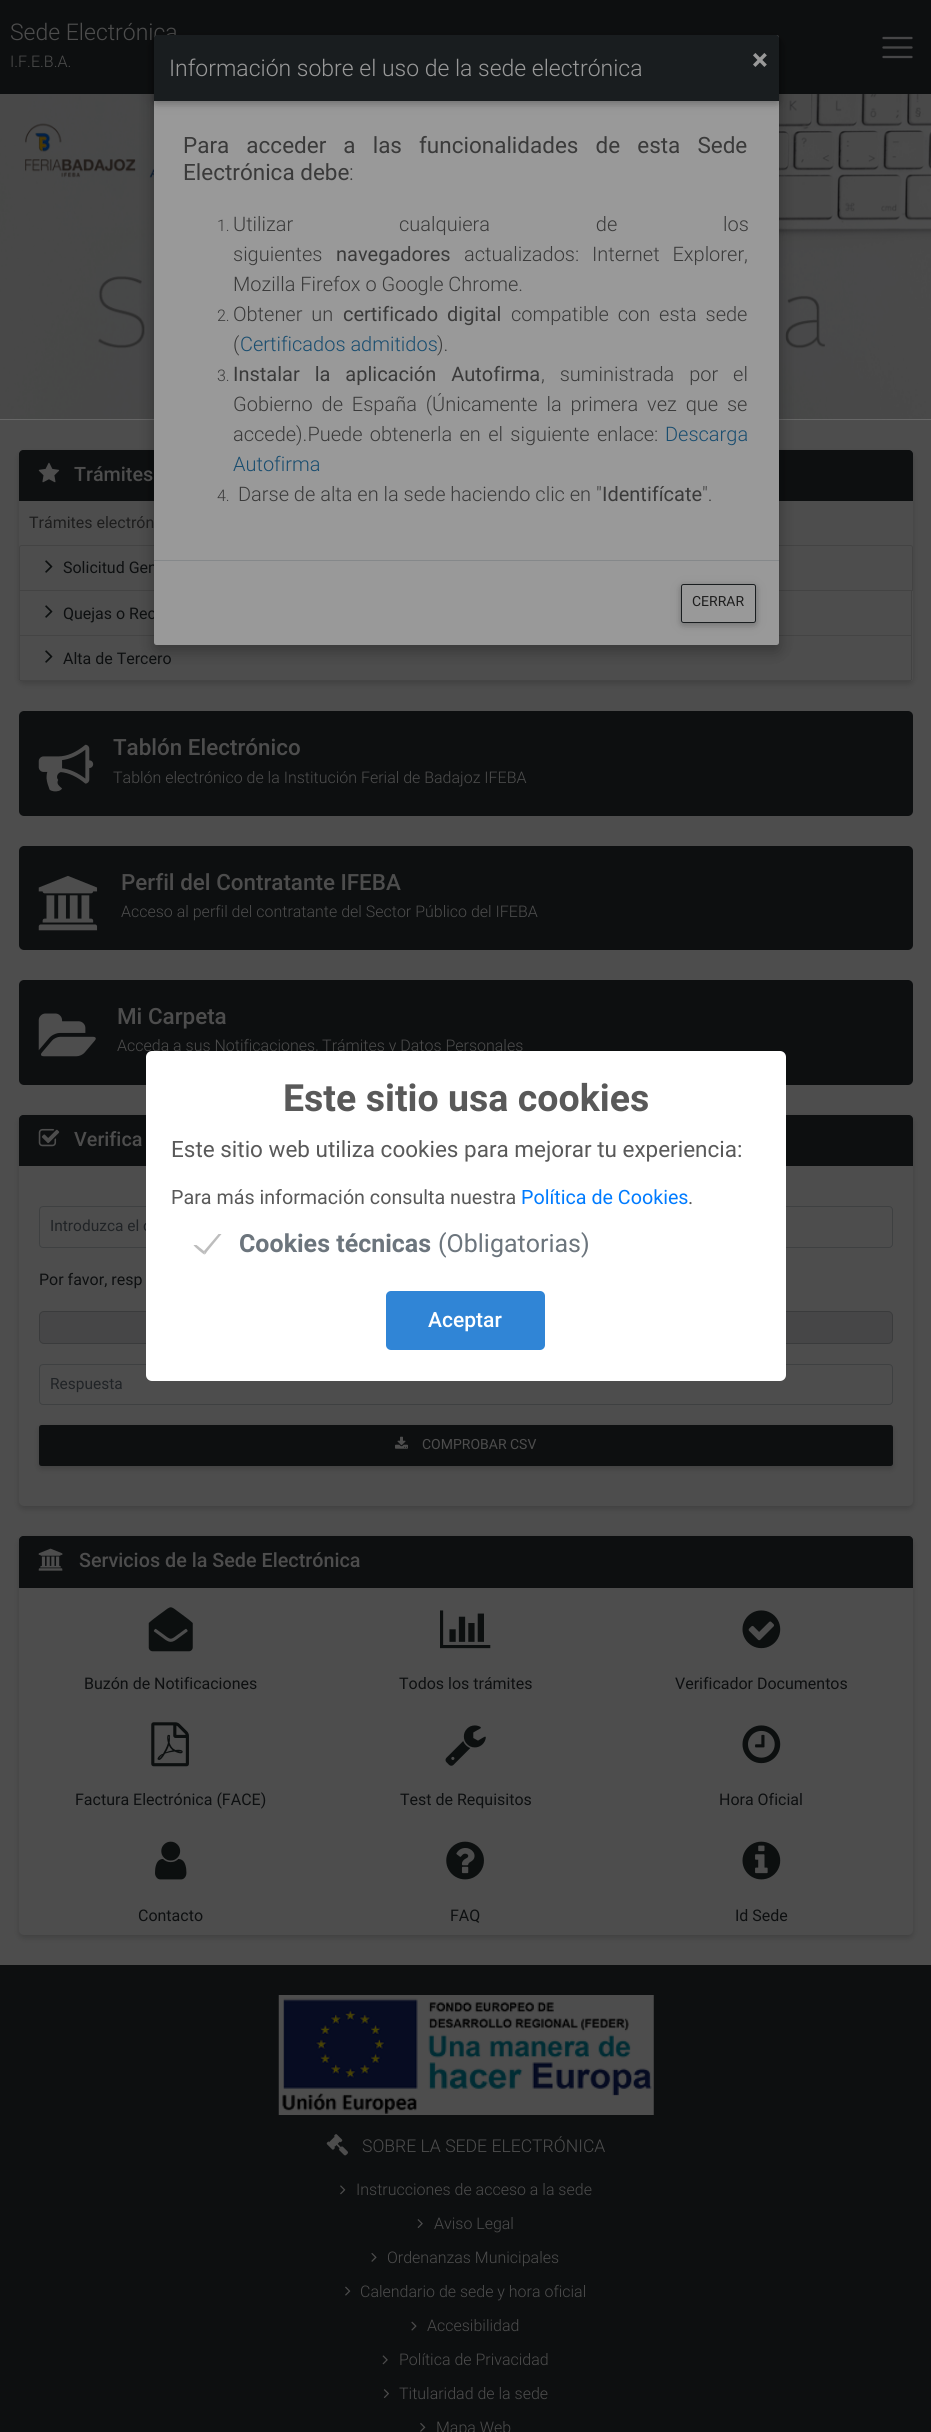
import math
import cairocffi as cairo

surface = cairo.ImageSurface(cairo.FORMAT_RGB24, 931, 2432)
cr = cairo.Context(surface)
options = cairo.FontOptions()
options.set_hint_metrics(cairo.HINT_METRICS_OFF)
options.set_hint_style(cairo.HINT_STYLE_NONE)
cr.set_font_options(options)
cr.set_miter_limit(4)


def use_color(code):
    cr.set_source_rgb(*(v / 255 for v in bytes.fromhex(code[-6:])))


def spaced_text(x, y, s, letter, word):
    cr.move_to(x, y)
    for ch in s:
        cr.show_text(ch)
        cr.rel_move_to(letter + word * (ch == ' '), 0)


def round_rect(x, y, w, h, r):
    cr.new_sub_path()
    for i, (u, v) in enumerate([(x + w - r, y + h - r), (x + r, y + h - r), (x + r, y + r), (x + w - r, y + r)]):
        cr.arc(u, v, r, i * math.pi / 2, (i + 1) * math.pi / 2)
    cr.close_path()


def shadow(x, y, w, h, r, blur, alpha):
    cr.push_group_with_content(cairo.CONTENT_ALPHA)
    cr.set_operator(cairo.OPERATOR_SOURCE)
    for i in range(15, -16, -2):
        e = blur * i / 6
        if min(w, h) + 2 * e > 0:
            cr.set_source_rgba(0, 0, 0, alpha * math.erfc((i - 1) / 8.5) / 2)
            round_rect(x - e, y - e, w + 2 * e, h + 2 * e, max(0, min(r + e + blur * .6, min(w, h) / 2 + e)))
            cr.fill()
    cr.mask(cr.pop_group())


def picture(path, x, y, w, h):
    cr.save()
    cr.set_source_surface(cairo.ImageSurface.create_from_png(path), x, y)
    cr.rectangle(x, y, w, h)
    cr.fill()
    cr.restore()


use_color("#ffffff")
cr.paint()
use_color("#0d0f10")
cr.rectangle(0, 0, 931, 94)
cr.fill()
cr.select_font_face("Roboto Light")
cr.set_font_size(23)
use_color("#4d4d4d")
cr.move_to(10, 40)
cr.show_text("Sede Electrónica")
cr.set_font_size(16)
cr.move_to(10, 67)
cr.show_text("I.F.E.B.A.")
cr.new_path()
cr.move_to(883.5, 38)
cr.line_to(911.5, 38)
cr.move_to(883.5, 47.5)
cr.line_to(911.5, 47.5)
cr.move_to(883.5, 57)
cr.line_to(911.5, 57)
use_color("#464647")
cr.set_line_width(2.3)
cr.set_line_cap(cairo.LINE_CAP_ROUND)
cr.stroke()
use_color("#000000")
shadow(0, 423, 931, 1545, 0, 6, 0.12)
picture("img1.png", 0, 94, 931, 326)
use_color("#4d4d4d")
cr.rectangle(0, 420, 931, 1545)
cr.fill()
use_color("#000000")
shadow(19, 453, 894, 231, 5, 3, 0.16)
use_color("#4d4d4d")
round_rect(19, 450, 894, 231, 5)
cr.fill()
use_color("#0d0f10")
cr.new_path()
cr.move_to(23, 450)
cr.line_to(909, 450)
cr.curve_to(911, 450, 913, 452, 913, 454)
cr.line_to(913, 501)
cr.line_to(19, 501)
cr.line_to(19, 454)
cr.curve_to(19, 452, 21, 450, 23, 450)
cr.close_path()
cr.fill()
cr.new_path()
cr.move_to(21.5, 545.5)
cr.line_to(910.5, 545.5)
cr.curve_to(911.5, 545.5, 912.5, 546.5, 912.5, 547.5)
cr.line_to(912.5, 590.5)
cr.line_to(19.5, 590.5)
cr.line_to(19.5, 547.5)
cr.curve_to(19.5, 546.5, 20.5, 545.5, 21.5, 545.5)
cr.close_path()
use_color("#434343")
cr.set_line_width(1)
cr.set_line_cap(cairo.LINE_CAP_BUTT)
cr.stroke()
cr.new_path()
cr.move_to(912, 591)
cr.line_to(912, 636)
cr.line_to(911, 635)
cr.line_to(911, 591)
cr.close_path()
cr.fill()
cr.set_source_rgba(0, 0, 0, 0.12)
cr.new_path()
cr.move_to(912, 636)
cr.line_to(19, 636)
cr.line_to(20, 635)
cr.line_to(911, 635)
cr.close_path()
cr.fill()
use_color("#4d4d4d")
cr.new_path()
cr.move_to(19, 636)
cr.line_to(913, 636)
cr.line_to(913, 678.5)
cr.curve_to(913, 680, 912, 681, 910.5, 681)
cr.line_to(21.5, 681)
cr.curve_to(20, 681, 19, 680, 19, 678.5)
cr.close_path()
cr.fill()
use_color("#000000")
shadow(154, 40, 625, 610, 2.5, 9.5, 0.15)
shadow(154, 41, 625, 610, 2.5, 7, 0.18)
cr.select_font_face("Roboto")
use_color("#0d0f10")
cr.move_to(63, 573)
cr.show_text("Solicitud Gen")
cr.move_to(63, 619)
cr.show_text("Quejas o Rec")
use_color("#999999")
round_rect(154, 35, 625, 610, 2.5)
cr.fill()
use_color("#000000")
shadow(154, 38, 625, 66, 2.5, 6, 0.12)
shadow(154, 38, 625, 66, 2.5, 3, 0.16)
use_color("#191d1f")
cr.new_path()
cr.move_to(156.5, 35)
cr.line_to(776.5, 35)
cr.curve_to(778, 35, 779, 36, 779, 37.5)
cr.line_to(779, 101)
cr.line_to(154, 101)
cr.line_to(154, 37.5)
cr.curve_to(154, 36, 155, 35, 156.5, 35)
cr.close_path()
cr.fill()
cr.select_font_face("Roboto Light")
cr.set_font_size(23)
use_color("#999999")
cr.move_to(169, 76)
cr.show_text("Información sobre el uso de la sede electrónica")
cr.select_font_face("Roboto", cairo.FONT_SLANT_NORMAL, cairo.FONT_WEIGHT_BOLD)
cr.set_font_size(30)
cr.move_to(752, 70)
cr.show_text("×")
cr.select_font_face("Roboto")
cr.set_font_size(22.5)
use_color("#3a3a3a")
spaced_text(183, 153, "Para acceder a las funcionalidades de esta Sede", 0, 11.5)
cr.move_to(183, 180)
cr.show_text("Electrónica debe")
cr.select_font_face("Roboto Light")
cr.move_to(349, 180)
cr.show_text(":")
cr.set_font_size(16)
cr.move_to(217, 231)
cr.show_text("1.")
cr.set_font_size(20)
spaced_text(233, 231, "Utilizar cualquiera de los", 0, 101)
cr.move_to(233, 261)
cr.show_text("siguientes")
cr.select_font_face("Roboto")
cr.move_to(336, 261)
cr.show_text("navegadores")
cr.select_font_face("Roboto Light")
spaced_text(464, 261, "actualizados: Internet Explorer,", 0, 8)
cr.move_to(233, 291)
cr.show_text("Mozilla Firefox o Google Chrome.")
cr.set_font_size(16)
cr.move_to(217, 321)
cr.show_text("2.")
cr.set_font_size(20)
spaced_text(233, 321, "Obtener un", 0, 4)
cr.select_font_face("Roboto")
spaced_text(343, 321, "certificado digital", 0, 4)
cr.select_font_face("Roboto Light")
spaced_text(511, 321, "compatible con esta sede", 0, 4)
cr.move_to(233, 351)
cr.show_text("(")
use_color("#194d6f")
cr.move_to(240, 351)
cr.show_text("Certificados admitidos")
use_color("#3a3a3a")
cr.move_to(437, 351)
cr.show_text(").")
cr.set_font_size(16)
cr.move_to(217, 381)
cr.show_text("3.")
cr.select_font_face("Roboto")
cr.set_font_size(20)
spaced_text(233, 381, "Instalar la aplicación Autofirma", 0, 10)
cr.select_font_face("Roboto Light")
spaced_text(541, 381, ", suministrada por el", 0, 10)
spaced_text(233, 411, "Gobierno de España (Únicamente la primera vez que se", 0, 4)
spaced_text(233, 441, "accede).Puede obtenerla en el siguiente enlace:", 0, 2.5)
use_color("#194d6f")
cr.move_to(665, 441)
cr.show_text("Descarga")
cr.move_to(233, 471)
cr.show_text("Autofirma")
cr.set_font_size(16)
use_color("#3a3a3a")
cr.move_to(217, 501)
cr.show_text("4.")
cr.set_font_size(20)
cr.move_to(238, 501)
cr.show_text("Darse de alta en la sede haciendo clic en \"")
cr.select_font_face("Roboto")
cr.move_to(602, 501)
cr.show_text("Identifícate")
cr.select_font_face("Roboto Light")
cr.move_to(702, 501)
cr.show_text("\".")
use_color("#85888a")
cr.rectangle(154, 560, 625, 1)
cr.fill()
cr.save()
cr.set_fill_rule(cairo.FILL_RULE_EVEN_ODD)
cr.new_path()
cr.move_to(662, 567)
cr.line_to(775, 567)
cr.line_to(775, 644)
cr.line_to(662, 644)
cr.close_path()
cr.move_to(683.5, 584)
cr.line_to(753.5, 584)
cr.curve_to(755, 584, 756, 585, 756, 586.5)
cr.line_to(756, 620.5)
cr.curve_to(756, 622, 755, 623, 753.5, 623)
cr.line_to(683.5, 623)
cr.curve_to(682, 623, 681, 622, 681, 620.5)
cr.line_to(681, 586.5)
cr.curve_to(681, 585, 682, 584, 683.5, 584)
cr.close_path()
cr.clip()
use_color("#000000")
shadow(681, 586, 75, 39, 2.5, 6, 0.12)
cr.restore()
cr.save()
cr.set_fill_rule(cairo.FILL_RULE_EVEN_ODD)
cr.new_path()
cr.move_to(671, 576)
cr.line_to(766, 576)
cr.line_to(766, 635)
cr.line_to(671, 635)
cr.close_path()
cr.move_to(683.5, 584)
cr.line_to(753.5, 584)
cr.curve_to(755, 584, 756, 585, 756, 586.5)
cr.line_to(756, 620.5)
cr.curve_to(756, 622, 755, 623, 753.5, 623)
cr.line_to(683.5, 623)
cr.curve_to(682, 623, 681, 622, 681, 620.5)
cr.line_to(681, 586.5)
cr.curve_to(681, 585, 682, 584, 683.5, 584)
cr.close_path()
cr.clip()
use_color("#000000")
shadow(681, 586, 75, 39, 2.5, 3, 0.16)
cr.restore()
round_rect(681.5, 584.5, 74, 38, 2)
use_color("#191d1f")
cr.stroke()
cr.select_font_face("Roboto")
cr.set_font_size(14)
use_color("#1d1d1d")
cr.move_to(692, 606)
cr.show_text("CERRAR")
picture("img2.png", 38, 462, 22, 21)
cr.select_font_face("Roboto Medium")
cr.set_font_size(19.75)
use_color("#4d4d4d")
cr.move_to(74, 481)
cr.show_text("Trámites")
cr.select_font_face("Roboto")
cr.set_font_size(16)
use_color("#1d1d1d")
cr.move_to(29, 528)
cr.show_text("Trámites electrón")
picture("img3.png", 45, 560, 8, 13)
cr.set_source_rgba(0, 0, 0, 0.12)
cr.new_path()
cr.move_to(19, 636)
cr.line_to(19, 591)
cr.line_to(20, 591)
cr.line_to(20, 635)
cr.close_path()
cr.fill()
picture("img3.png", 45, 605, 8, 13)
use_color("#434343")
cr.rectangle(911, 636, 1, 44)
cr.fill()
cr.set_source_rgba(0, 0, 0, 0.12)
cr.rectangle(20, 680, 891, 1)
cr.fill()
cr.rectangle(19, 636, 1, 44)
cr.fill()
picture("img3.png", 45, 650, 8, 13)
use_color("#0d0f10")
cr.move_to(63, 664)
cr.show_text("Alta de Tercero")
round_rect(19, 711, 894, 105, 5)
cr.fill()
picture("img4.png", 38, 744, 56, 48)
cr.select_font_face("Roboto Medium")
cr.set_font_size(22.4)
use_color("#4d4d4d")
cr.move_to(113, 755)
cr.show_text("Tablón Electrónico")
cr.select_font_face("Roboto Light")
cr.set_font_size(16)
cr.move_to(113, 783)
cr.show_text("Tablón electrónico de la Institución Ferial de Badajoz IFEBA")
use_color("#0d0f10")
round_rect(19, 846, 894, 104, 5)
cr.fill()
picture("img5.png", 38, 875, 60, 56)
cr.select_font_face("Roboto Medium")
cr.set_font_size(22.4)
use_color("#4d4d4d")
cr.move_to(121, 890)
cr.show_text("Perfil del Contratante IFEBA")
cr.select_font_face("Roboto Light")
cr.set_font_size(16)
cr.move_to(121, 917)
cr.show_text("Acceso al perfil del contratante del Sector Público del IFEBA")
use_color("#0d0f10")
round_rect(19, 980, 894, 105, 5)
cr.fill()
picture("img6.png", 38, 1013, 58, 44)
cr.select_font_face("Roboto Medium")
cr.set_font_size(22.4)
use_color("#4d4d4d")
cr.move_to(117, 1024)
cr.show_text("Mi Carpeta")
cr.select_font_face("Roboto Light")
cr.set_font_size(16)
cr.move_to(117, 1051)
cr.show_text("Acceda a sus Notificaciones, Trámites y Datos Personales")
use_color("#000000")
shadow(19, 1118, 894, 391, 5, 3, 0.16)
use_color("#4d4d4d")
round_rect(19, 1115, 894, 391, 5)
cr.fill()
use_color("#0d0f10")
cr.new_path()
cr.move_to(23, 1115)
cr.line_to(909, 1115)
cr.curve_to(911, 1115, 913, 1117, 913, 1119)
cr.line_to(913, 1166)
cr.line_to(19, 1166)
cr.line_to(19, 1119)
cr.curve_to(19, 1117, 21, 1115, 23, 1115)
cr.close_path()
cr.fill()
picture("img7.png", 38, 1128, 22, 19)
cr.select_font_face("Roboto Medium")
cr.set_font_size(19.75)
use_color("#4d4d4d")
cr.move_to(74, 1146)
cr.show_text("Verifica")
round_rect(39.5, 1206.5, 853, 41, 3.5)
use_color("#3e4041")
cr.stroke()
cr.select_font_face("Roboto")
cr.set_font_size(15.5)
use_color("#202326")
cr.move_to(50, 1231)
cr.show_text("Introduzca el c")
cr.set_font_size(16)
use_color("#0d0f10")
cr.move_to(39, 1285)
cr.show_text("Por favor, resp")
use_color("#464647")
round_rect(39, 1311, 854, 33, 5)
cr.fill()
round_rect(39.5, 1311.5, 853, 32, 4.5)
cr.set_source_rgba(0.051, 0.059, 0.063, 0.2)
cr.stroke()
round_rect(39.5, 1364.5, 853, 40, 3.5)
use_color("#3e4041")
cr.stroke()
cr.set_font_size(15.5)
use_color("#202326")
cr.move_to(50, 1389)
cr.show_text("Respuesta")
use_color("#000000")
shadow(39, 1428, 854, 41, 2.5, 3, 0.16)
use_color("#0d0f10")
round_rect(39, 1425, 854, 41, 2.5)
cr.fill()
picture("img8.png", 395, 1436, 13, 13)
cr.set_font_size(14)
use_color("#4d4d4d")
cr.move_to(422, 1449)
cr.show_text("COMPROBAR CSV")
use_color("#000000")
shadow(19, 1539, 894, 399, 5, 3, 0.16)
use_color("#4d4d4d")
round_rect(19, 1536, 894, 399, 5)
cr.fill()
use_color("#0d0f10")
cr.new_path()
cr.move_to(23, 1536)
cr.line_to(909, 1536)
cr.curve_to(911, 1536, 913, 1538, 913, 1540)
cr.line_to(913, 1588)
cr.line_to(19, 1588)
cr.line_to(19, 1540)
cr.curve_to(19, 1538, 21, 1536, 23, 1536)
cr.close_path()
cr.fill()
picture("img9.png", 38, 1548, 25, 23)
cr.select_font_face("Roboto Medium")
cr.set_font_size(19.75)
use_color("#4d4d4d")
cr.move_to(79, 1567)
cr.show_text("Servicios de la Sede Electrónica")
picture("img10.png", 148, 1607, 45, 45)
cr.select_font_face("Roboto")
cr.set_font_size(16)
use_color("#0d0f10")
cr.move_to(84, 1689)
cr.show_text("Buzón de Notificaciones")
picture("img11.png", 440, 1610, 51, 39)
cr.move_to(399, 1689)
cr.show_text("Todos los trámites")
picture("img12.png", 742, 1610, 39, 39)
cr.move_to(675, 1689)
cr.show_text("Verificador Documentos")
picture("img13.png", 151, 1722, 38, 45)
cr.move_to(75, 1805)
cr.show_text("Factura Electrónica (FACE)")
picture("img14.png", 445, 1725, 41, 41)
cr.move_to(400, 1805)
cr.show_text("Test de Requisitos")
picture("img15.png", 742, 1725, 39, 39)
cr.move_to(719, 1805)
cr.show_text("Hora Oficial")
picture("img16.png", 155, 1841, 32, 39)
cr.move_to(138, 1921)
cr.show_text("Contacto")
picture("img17.png", 446, 1841, 38, 39)
cr.move_to(450, 1921)
cr.show_text("FAQ")
picture("img18.png", 742, 1841, 39, 39)
cr.move_to(735, 1921)
cr.show_text("Id Sede")
use_color("#ffffff")
round_rect(146, 1051, 640, 330, 6)
cr.fill()
cr.select_font_face("Roboto", cairo.FONT_SLANT_NORMAL, cairo.FONT_WEIGHT_BOLD)
cr.set_font_size(37.5)
use_color("#595959")
cr.move_to(283, 1111)
cr.show_text("Este sitio usa cookies")
cr.select_font_face("Roboto")
cr.set_font_size(22.5)
cr.move_to(171, 1157)
cr.show_text("Este sitio web utiliza cookies para mejorar tu experiencia:")
cr.set_font_size(19.7)
cr.move_to(171, 1204)
cr.show_text("Para más información consulta nuestra")
use_color("#007bff")
cr.move_to(521, 1204)
cr.show_text("Política de Cookies")
use_color("#595959")
cr.move_to(688, 1204)
cr.show_text(".")
use_color("#bdbdbd")
cr.new_path()
cr.move_to(221.5, 1234)
cr.line_to(207.5, 1251)
cr.curve_to(206.5, 1252, 206, 1254, 204.5, 1254.5)
cr.line_to(204, 1251)
cr.line_to(218.5, 1234)
cr.close_path()
cr.fill()
cr.new_path()
cr.move_to(204.5, 1254.5)
cr.curve_to(203.5, 1254.5, 194, 1246.5, 193.5, 1245)
cr.line_to(196.5, 1245)
cr.line_to(204, 1251)
cr.close_path()
cr.fill()
cr.select_font_face("Roboto", cairo.FONT_SLANT_NORMAL, cairo.FONT_WEIGHT_BOLD)
cr.set_font_size(25)
use_color("#6c757d")
cr.move_to(239, 1252)
cr.show_text("Cookies técnicas")
cr.select_font_face("Roboto")
cr.move_to(438, 1252)
cr.show_text("(Obligatorias)")
use_color("#3085d6")
round_rect(386, 1291, 159, 59, 5)
cr.fill()
cr.select_font_face("Roboto Medium")
cr.set_font_size(21)
use_color("#ffffff")
cr.move_to(428, 1327)
cr.show_text("Aceptar")
use_color("#0d0f10")
cr.rectangle(0, 1965, 931, 467)
cr.fill()
picture("img19.png", 278, 1995, 376, 120)
picture("img20.png", 326, 2134, 22, 22)
cr.select_font_face("Roboto Light")
cr.set_font_size(17.6)
use_color("#4d4d4d")
cr.move_to(362, 2152)
cr.show_text("SOBRE LA SEDE ELECTRÓNICA")
picture("img21.png", 340, 2185, 6, 10)
cr.set_font_size(16)
cr.move_to(356, 2195)
cr.show_text("Instrucciones de acceso a la sede")
picture("img22.png", 417, 2219, 6, 9)
cr.move_to(434, 2229)
cr.show_text("Aviso Legal")
picture("img23.png", 371, 2253, 6, 9)
cr.move_to(387, 2263)
cr.show_text("Ordenanzas Municipales")
picture("img24.png", 345, 2286, 6, 10)
cr.move_to(360, 2297)
cr.show_text("Calendario de sede y hora oficial")
picture("img25.png", 411, 2321, 6, 10)
cr.move_to(427, 2331)
cr.show_text("Accesibilidad")
picture("img26.png", 382, 2355, 6, 10)
cr.move_to(399, 2365)
cr.show_text("Política de Privacidad")
picture("img27.png", 383, 2389, 6, 9)
cr.move_to(399, 2399)
cr.show_text("Titularidad de la sede")
picture("img28.png", 420, 2423, 6, 9)
cr.move_to(436, 2433)
cr.show_text("Mapa Web")
surface.write_to_png("result.png")
